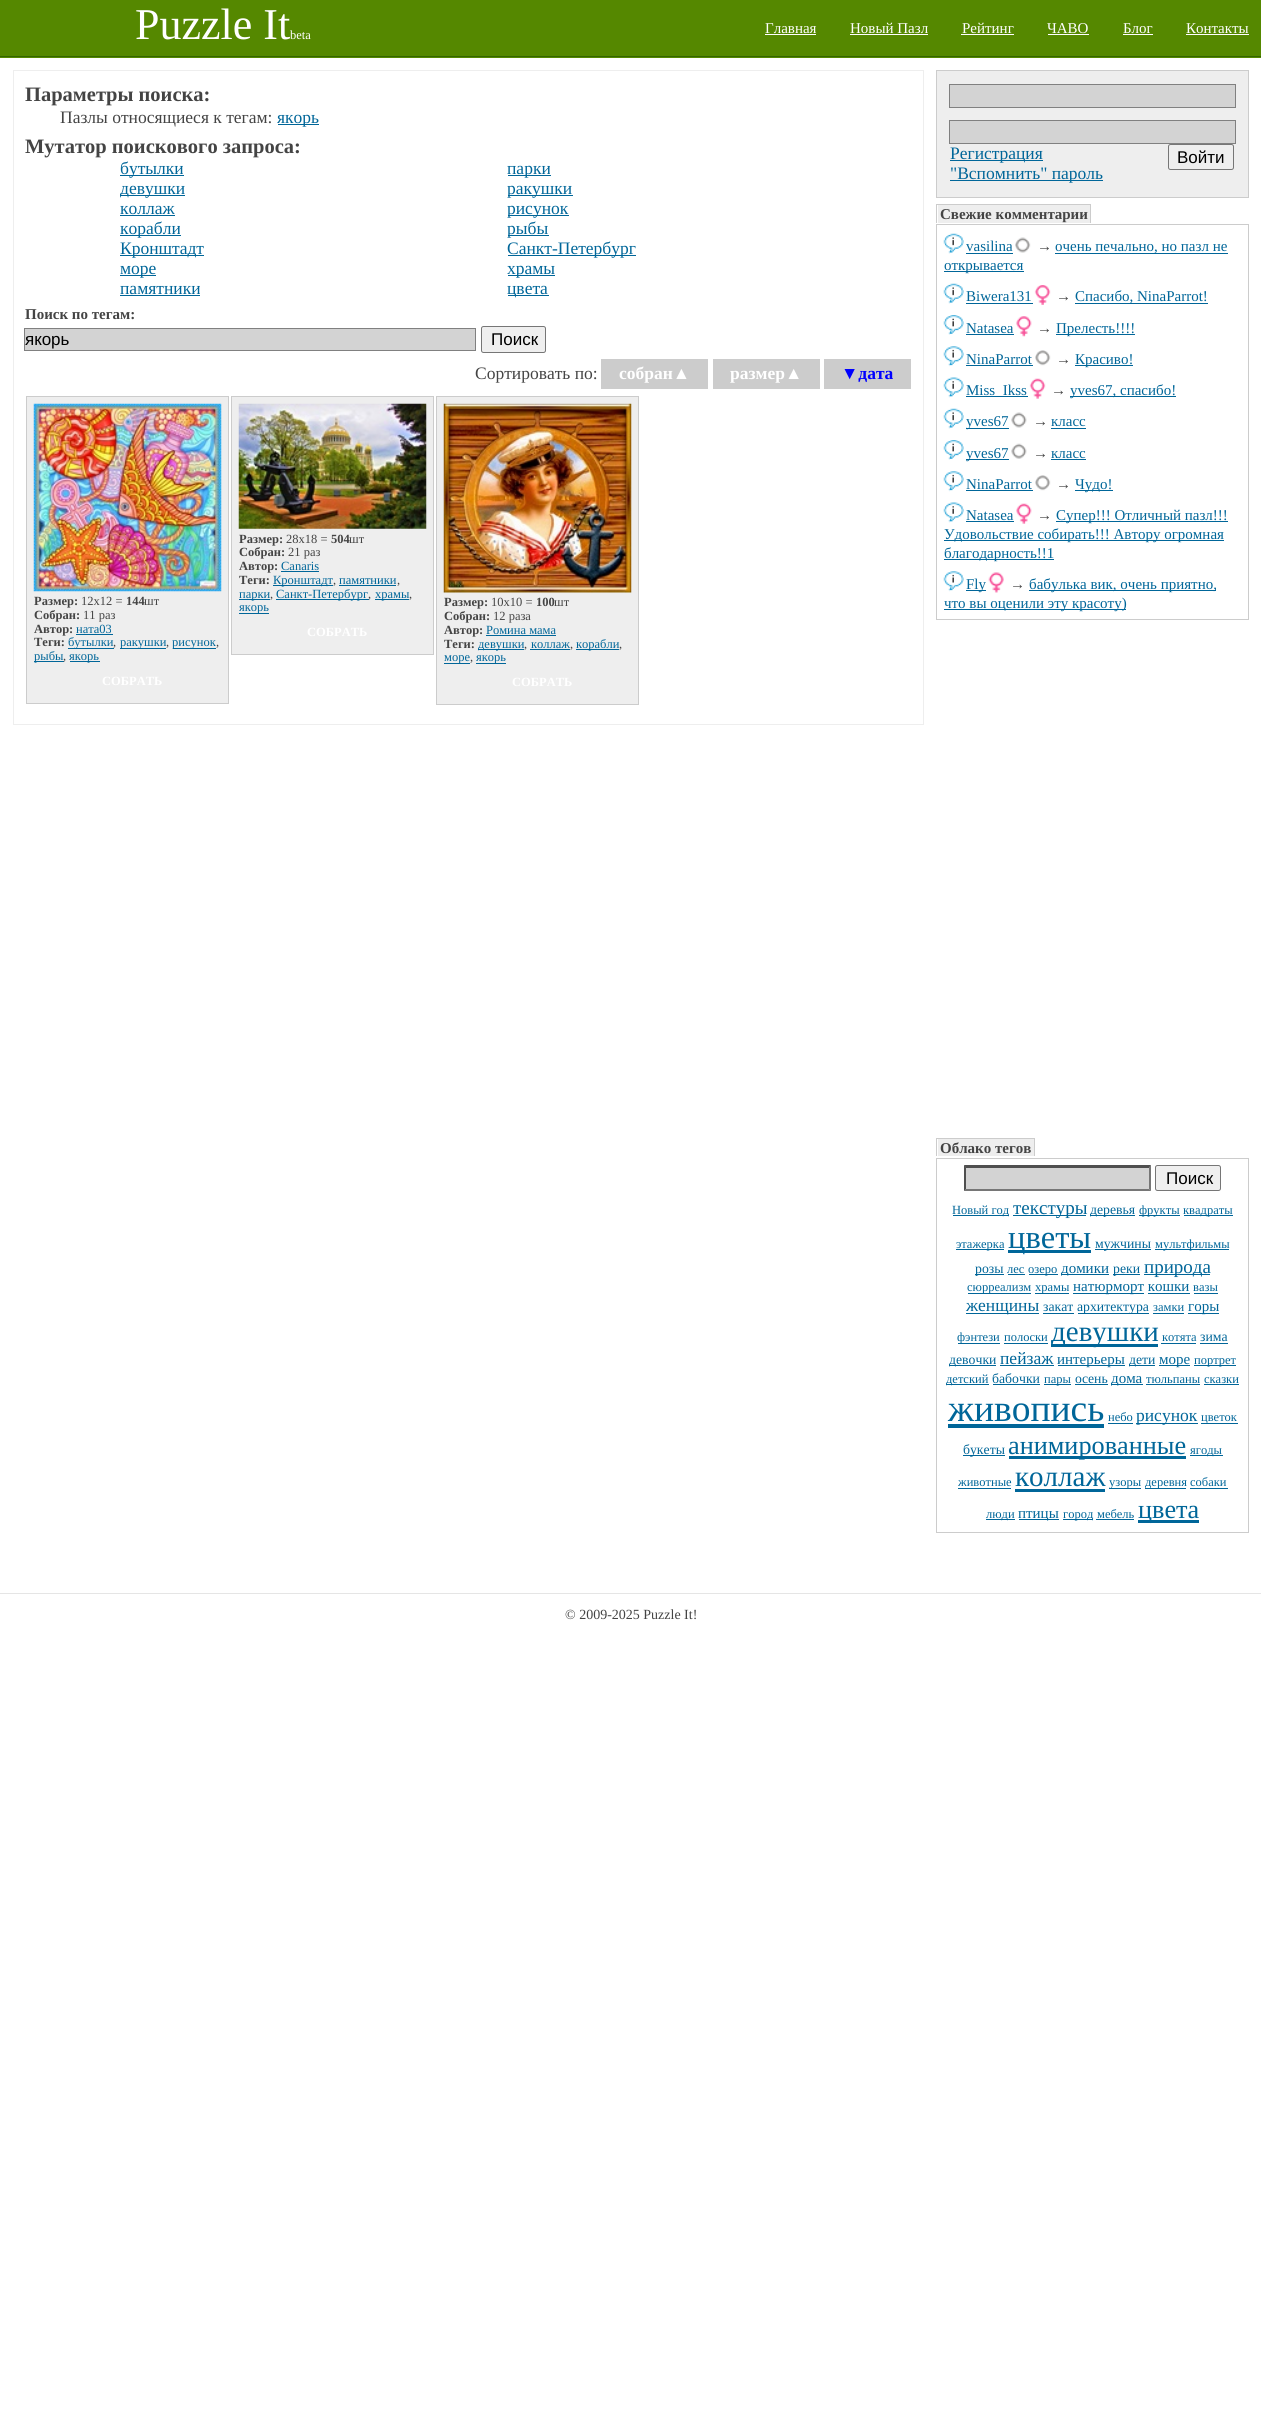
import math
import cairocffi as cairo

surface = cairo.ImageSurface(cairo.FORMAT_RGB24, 1261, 2413)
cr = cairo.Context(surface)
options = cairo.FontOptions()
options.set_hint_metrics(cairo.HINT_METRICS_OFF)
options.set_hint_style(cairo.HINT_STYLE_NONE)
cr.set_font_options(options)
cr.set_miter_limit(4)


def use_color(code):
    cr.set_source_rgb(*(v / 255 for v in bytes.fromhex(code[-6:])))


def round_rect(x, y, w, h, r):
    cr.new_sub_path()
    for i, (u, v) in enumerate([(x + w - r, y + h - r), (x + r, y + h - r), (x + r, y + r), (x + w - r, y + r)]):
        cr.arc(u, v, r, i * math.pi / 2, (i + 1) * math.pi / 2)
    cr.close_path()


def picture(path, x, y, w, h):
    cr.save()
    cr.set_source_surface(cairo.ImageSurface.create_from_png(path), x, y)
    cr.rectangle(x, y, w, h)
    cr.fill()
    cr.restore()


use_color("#ffffff")
cr.paint()
use_color("#558800")
cr.rectangle(0, 0, 1261, 58)
cr.fill()
use_color("#336600")
cr.rectangle(0, 56, 1261, 1)
cr.fill()
cr.select_font_face("Liberation Serif")
cr.set_font_size(44)
use_color("#ffffff")
cr.move_to(135, 39)
cr.show_text("Puzzle It")
cr.set_font_size(12.5)
cr.move_to(290, 39)
cr.show_text("beta")
cr.set_font_size(15)
cr.move_to(765, 33)
cr.show_text("Главная")
cr.rectangle(765, 34, 51, 1)
cr.fill()
cr.move_to(850, 33)
cr.show_text("Новый Пазл")
cr.rectangle(850, 34, 78, 1)
cr.fill()
cr.move_to(962, 33)
cr.show_text("Рейтинг")
cr.rectangle(961, 34, 53, 1)
cr.fill()
cr.move_to(1047, 33)
cr.show_text("ЧАВО")
cr.rectangle(1048, 34, 41, 1)
cr.fill()
cr.move_to(1123, 33)
cr.show_text("Блог")
cr.rectangle(1123, 34, 30, 1)
cr.fill()
cr.move_to(1186, 33)
cr.show_text("Контакты")
cr.rectangle(1186, 34, 63, 1)
cr.fill()
cr.rectangle(13.5, 70.5, 910, 654)
use_color("#eeeeee")
cr.set_line_width(1)
cr.stroke()
cr.select_font_face("Liberation Serif", cairo.FONT_SLANT_NORMAL, cairo.FONT_WEIGHT_BOLD)
cr.set_font_size(20.5)
use_color("#444444")
cr.move_to(25, 101)
cr.show_text("Параметры поиска:")
cr.select_font_face("Liberation Serif")
cr.set_font_size(17.5)
cr.move_to(60, 123)
cr.show_text("Пазлы относящиеся к тегам:")
use_color("#006699")
cr.rectangle(278, 124, 41, 1)
cr.fill()
cr.move_to(277, 123)
cr.show_text("якорь")
cr.select_font_face("Liberation Serif", cairo.FONT_SLANT_NORMAL, cairo.FONT_WEIGHT_BOLD)
cr.set_font_size(20.5)
use_color("#444444")
cr.move_to(25, 153)
cr.show_text("Мутатор поискового запроса:")
use_color("#006699")
cr.rectangle(120, 175, 64, 1)
cr.fill()
cr.select_font_face("Liberation Serif")
cr.set_font_size(17.5)
cr.move_to(120, 174)
cr.show_text("бутылки")
cr.rectangle(120, 195, 65, 1)
cr.fill()
cr.move_to(120, 194)
cr.show_text("девушки")
cr.move_to(120, 214)
cr.show_text("коллаж")
cr.rectangle(120, 215, 55, 1)
cr.fill()
cr.rectangle(120, 235, 61, 1)
cr.fill()
cr.move_to(120, 234)
cr.show_text("корабли")
cr.rectangle(120, 255, 84, 1)
cr.fill()
cr.move_to(120, 254)
cr.show_text("Кронштадт")
cr.rectangle(120, 275, 36, 1)
cr.fill()
cr.move_to(120, 274)
cr.show_text("море")
cr.move_to(120, 294)
cr.show_text("памятники")
cr.rectangle(120, 295, 80, 1)
cr.fill()
cr.rectangle(508, 175, 43, 1)
cr.fill()
cr.move_to(507, 174)
cr.show_text("парки")
cr.rectangle(508, 195, 65, 1)
cr.fill()
cr.move_to(507, 194)
cr.show_text("ракушки")
cr.rectangle(508, 215, 61, 1)
cr.fill()
cr.move_to(507, 214)
cr.show_text("рисунок")
cr.rectangle(508, 235, 41, 1)
cr.fill()
cr.move_to(507, 234)
cr.show_text("рыбы")
cr.rectangle(508, 255, 128, 1)
cr.fill()
cr.move_to(507, 254)
cr.show_text("Санкт-Петербург")
cr.rectangle(508, 275, 47, 1)
cr.fill()
cr.move_to(507, 274)
cr.show_text("храмы")
cr.rectangle(508, 295, 41, 1)
cr.fill()
cr.move_to(507, 294)
cr.show_text("цвета")
cr.select_font_face("Liberation Serif", cairo.FONT_SLANT_NORMAL, cairo.FONT_WEIGHT_BOLD)
cr.set_font_size(15)
use_color("#444444")
cr.move_to(25, 319)
cr.show_text("Поиск по тегам:")
use_color("#d3d3d3")
cr.rectangle(24.5, 328.5, 451, 22)
cr.fill_preserve()
use_color("#808080")
cr.stroke()
cr.select_font_face("Liberation Sans")
cr.set_font_size(17)
use_color("#000000")
cr.move_to(25, 345)
cr.show_text("якорь")
use_color("#efefef")
round_rect(481.5, 326.5, 64, 26, 2)
cr.fill_preserve()
use_color("#767676")
cr.stroke()
use_color("#000000")
cr.move_to(491, 345)
cr.show_text("Поиск")
cr.select_font_face("Liberation Serif")
cr.set_font_size(17.5)
use_color("#444444")
cr.move_to(475, 379)
cr.show_text("Сортировать по:")
use_color("#cccccc")
cr.rectangle(601, 359, 107, 30)
cr.fill()
cr.select_font_face("Liberation Serif", cairo.FONT_SLANT_NORMAL, cairo.FONT_WEIGHT_BOLD)
use_color("#ffffff")
cr.move_to(619, 379)
cr.show_text("собран▲")
use_color("#cccccc")
cr.rectangle(713, 359, 107, 30)
cr.fill()
use_color("#ffffff")
cr.move_to(730, 379)
cr.show_text("размер▲")
use_color("#cccccc")
cr.rectangle(824, 359, 87, 30)
cr.fill()
use_color("#0000ff")
cr.move_to(841, 379)
cr.show_text("▼дата")
use_color("#eeeeee")
cr.rectangle(26.5, 396.5, 202, 307)
cr.fill_preserve()
use_color("#cccccc")
cr.stroke()
picture("img1.png", 33, 403, 189, 189)
cr.set_font_size(12.5)
use_color("#444444")
cr.move_to(34, 605)
cr.show_text("Размер:")
cr.select_font_face("Liberation Serif")
cr.move_to(81, 605)
cr.show_text("12x12 =")
cr.select_font_face("Liberation Serif", cairo.FONT_SLANT_NORMAL, cairo.FONT_WEIGHT_BOLD)
cr.move_to(126, 605)
cr.show_text("144")
cr.select_font_face("Liberation Serif")
cr.move_to(144, 605)
cr.show_text("шт")
cr.select_font_face("Liberation Serif", cairo.FONT_SLANT_NORMAL, cairo.FONT_WEIGHT_BOLD)
cr.move_to(34, 619)
cr.show_text("Собран:")
cr.select_font_face("Liberation Serif")
cr.move_to(83, 619)
cr.show_text("11 раз")
cr.select_font_face("Liberation Serif", cairo.FONT_SLANT_NORMAL, cairo.FONT_WEIGHT_BOLD)
cr.move_to(34, 633)
cr.show_text("Автор:")
cr.select_font_face("Liberation Serif")
use_color("#006699")
cr.move_to(76, 633)
cr.show_text("ната03")
cr.rectangle(76, 634, 37, 1)
cr.fill()
cr.select_font_face("Liberation Serif", cairo.FONT_SLANT_NORMAL, cairo.FONT_WEIGHT_BOLD)
use_color("#444444")
cr.move_to(34, 646)
cr.show_text("Теги:")
use_color("#006699")
cr.rectangle(68, 648, 46, 1)
cr.fill()
cr.select_font_face("Liberation Serif")
cr.move_to(68, 646)
cr.show_text("бутылки")
use_color("#444444")
cr.move_to(113, 646)
cr.show_text(",")
use_color("#006699")
cr.rectangle(120, 648, 46, 1)
cr.fill()
cr.move_to(120, 646)
cr.show_text("ракушки")
use_color("#444444")
cr.move_to(166, 646)
cr.show_text(",")
use_color("#006699")
cr.rectangle(173, 648, 43, 1)
cr.fill()
cr.move_to(172, 646)
cr.show_text("рисунок")
use_color("#444444")
cr.move_to(216, 646)
cr.show_text(",")
use_color("#006699")
cr.rectangle(34, 661, 30, 1)
cr.fill()
cr.move_to(34, 660)
cr.show_text("рыбы")
use_color("#444444")
cr.move_to(63, 660)
cr.show_text(",")
use_color("#006699")
cr.rectangle(70, 661, 30, 1)
cr.fill()
cr.move_to(69, 660)
cr.show_text("якорь")
cr.select_font_face("Liberation Serif", cairo.FONT_SLANT_NORMAL, cairo.FONT_WEIGHT_BOLD)
use_color("#ffffff")
cr.move_to(102, 685)
cr.show_text("СОБРАТЬ")
use_color("#eeeeee")
cr.rectangle(231.5, 396.5, 202, 258)
cr.fill_preserve()
use_color("#cccccc")
cr.stroke()
picture("img2.png", 238, 403, 189, 126)
use_color("#444444")
cr.move_to(239, 543)
cr.show_text("Размер:")
cr.select_font_face("Liberation Serif")
cr.move_to(286, 543)
cr.show_text("28x18 =")
cr.select_font_face("Liberation Serif", cairo.FONT_SLANT_NORMAL, cairo.FONT_WEIGHT_BOLD)
cr.move_to(331, 543)
cr.show_text("504")
cr.select_font_face("Liberation Serif")
cr.move_to(349, 543)
cr.show_text("шт")
cr.select_font_face("Liberation Serif", cairo.FONT_SLANT_NORMAL, cairo.FONT_WEIGHT_BOLD)
cr.move_to(239, 556)
cr.show_text("Собран:")
cr.select_font_face("Liberation Serif")
cr.move_to(288, 556)
cr.show_text("21 раз")
cr.select_font_face("Liberation Serif", cairo.FONT_SLANT_NORMAL, cairo.FONT_WEIGHT_BOLD)
cr.move_to(239, 570)
cr.show_text("Автор:")
cr.select_font_face("Liberation Serif")
use_color("#006699")
cr.move_to(281, 570)
cr.show_text("Canaris")
cr.rectangle(281, 571, 38, 1)
cr.fill()
cr.select_font_face("Liberation Serif", cairo.FONT_SLANT_NORMAL, cairo.FONT_WEIGHT_BOLD)
use_color("#444444")
cr.move_to(239, 584)
cr.show_text("Теги:")
use_color("#006699")
cr.rectangle(273, 585, 60, 1)
cr.fill()
cr.select_font_face("Liberation Serif")
cr.move_to(273, 584)
cr.show_text("Кронштадт")
use_color("#444444")
cr.move_to(333, 584)
cr.show_text(",")
use_color("#006699")
cr.move_to(339, 584)
cr.show_text("памятники")
use_color("#444444")
cr.move_to(397, 584)
cr.show_text(",")
use_color("#006699")
cr.rectangle(339, 585, 57, 1)
cr.fill()
cr.rectangle(239, 599, 31, 1)
cr.fill()
cr.move_to(239, 598)
cr.show_text("парки")
use_color("#444444")
cr.move_to(270, 598)
cr.show_text(",")
use_color("#006699")
cr.rectangle(276, 599, 93, 1)
cr.fill()
cr.move_to(276, 598)
cr.show_text("Санкт-Петербург")
use_color("#444444")
cr.move_to(368, 598)
cr.show_text(",")
use_color("#006699")
cr.rectangle(375, 599, 34, 1)
cr.fill()
cr.move_to(375, 598)
cr.show_text("храмы")
use_color("#444444")
cr.move_to(409, 598)
cr.show_text(",")
use_color("#006699")
cr.rectangle(239, 613, 30, 1)
cr.fill()
cr.move_to(239, 611)
cr.show_text("якорь")
cr.select_font_face("Liberation Serif", cairo.FONT_SLANT_NORMAL, cairo.FONT_WEIGHT_BOLD)
use_color("#ffffff")
cr.move_to(307, 636)
cr.show_text("СОБРАТЬ")
use_color("#eeeeee")
cr.rectangle(436.5, 396.5, 202, 308)
cr.fill_preserve()
use_color("#cccccc")
cr.stroke()
picture("img3.png", 443, 403, 189, 190)
use_color("#444444")
cr.move_to(444, 606)
cr.show_text("Размер:")
cr.select_font_face("Liberation Serif")
cr.move_to(491, 606)
cr.show_text("10x10 =")
cr.select_font_face("Liberation Serif", cairo.FONT_SLANT_NORMAL, cairo.FONT_WEIGHT_BOLD)
cr.move_to(536, 606)
cr.show_text("100")
cr.select_font_face("Liberation Serif")
cr.move_to(554, 606)
cr.show_text("шт")
cr.select_font_face("Liberation Serif", cairo.FONT_SLANT_NORMAL, cairo.FONT_WEIGHT_BOLD)
cr.move_to(444, 620)
cr.show_text("Собран:")
cr.select_font_face("Liberation Serif")
cr.move_to(493, 620)
cr.show_text("12 раза")
cr.select_font_face("Liberation Serif", cairo.FONT_SLANT_NORMAL, cairo.FONT_WEIGHT_BOLD)
cr.move_to(444, 634)
cr.show_text("Автор:")
cr.select_font_face("Liberation Serif")
use_color("#006699")
cr.move_to(486, 634)
cr.show_text("Ромина мама")
cr.rectangle(486, 635, 70, 1)
cr.fill()
cr.select_font_face("Liberation Serif", cairo.FONT_SLANT_NORMAL, cairo.FONT_WEIGHT_BOLD)
use_color("#444444")
cr.move_to(444, 648)
cr.show_text("Теги:")
use_color("#006699")
cr.rectangle(478, 649, 46, 1)
cr.fill()
cr.select_font_face("Liberation Serif")
cr.move_to(478, 648)
cr.show_text("девушки")
use_color("#444444")
cr.move_to(524, 648)
cr.show_text(",")
use_color("#006699")
cr.move_to(531, 648)
cr.show_text("коллаж")
cr.rectangle(530, 649, 40, 1)
cr.fill()
use_color("#444444")
cr.move_to(570, 648)
cr.show_text(",")
use_color("#006699")
cr.rectangle(576, 649, 43, 1)
cr.fill()
cr.move_to(576, 648)
cr.show_text("корабли")
use_color("#444444")
cr.move_to(619, 648)
cr.show_text(",")
use_color("#006699")
cr.rectangle(444, 663, 26, 1)
cr.fill()
cr.move_to(444, 661)
cr.show_text("море")
use_color("#444444")
cr.move_to(470, 661)
cr.show_text(",")
use_color("#006699")
cr.rectangle(476, 663, 30, 1)
cr.fill()
cr.move_to(476, 661)
cr.show_text("якорь")
cr.select_font_face("Liberation Serif", cairo.FONT_SLANT_NORMAL, cairo.FONT_WEIGHT_BOLD)
use_color("#ffffff")
cr.move_to(512, 686)
cr.show_text("СОБРАТЬ")
use_color("#eeeeee")
cr.rectangle(936.5, 70.5, 312, 127)
cr.fill_preserve()
use_color("#cccccc")
cr.stroke()
use_color("#d3d3d3")
cr.rectangle(949.5, 84.5, 286, 23)
cr.fill_preserve()
use_color("#808080")
cr.stroke()
use_color("#d3d3d3")
cr.rectangle(949.5, 120.5, 286, 23)
cr.fill_preserve()
use_color("#808080")
cr.stroke()
use_color("#006699")
cr.rectangle(950, 160, 93, 1)
cr.fill()
cr.select_font_face("Liberation Serif")
cr.set_font_size(17.5)
cr.move_to(950, 159)
cr.show_text("Регистрация")
cr.rectangle(950, 180, 153, 1)
cr.fill()
cr.move_to(950, 179)
cr.show_text("\"Вспомнить\" пароль")
round_rect(1168.5, 144.5, 65, 25, 2)
use_color("#767676")
cr.stroke()
cr.select_font_face("Liberation Sans")
cr.set_font_size(17)
use_color("#000000")
cr.move_to(1177, 163)
cr.show_text("Войти")
use_color("#eeeeee")
cr.rectangle(938, 205, 152, 18)
cr.fill()
cr.select_font_face("Liberation Serif", cairo.FONT_SLANT_NORMAL, cairo.FONT_WEIGHT_BOLD)
cr.set_font_size(15)
use_color("#444444")
cr.move_to(940, 219)
cr.show_text("Свежие комментарии")
use_color("#cccccc")
cr.rectangle(936, 204, 155, 1)
cr.fill()
cr.rectangle(1090, 204, 1, 19)
cr.fill()
cr.rectangle(936, 204, 1, 19)
cr.fill()
cr.rectangle(936.5, 224.5, 312, 395)
cr.stroke()
picture("img4.png", 943, 233, 21, 21)
cr.select_font_face("Liberation Serif")
use_color("#006699")
cr.move_to(966, 251)
cr.show_text("vasilina")
cr.rectangle(966, 253, 47, 1)
cr.fill()
picture("img5.png", 1015, 237, 16, 16)
use_color("#444444")
cr.move_to(1037, 251)
cr.show_text("→")
use_color("#006699")
cr.rectangle(1055, 253, 173, 1)
cr.fill()
cr.move_to(1055, 251)
cr.show_text("очень печально, но пазл не")
cr.rectangle(944, 271, 80, 1)
cr.fill()
cr.move_to(944, 270)
cr.show_text("открывается")
picture("img6.png", 943, 283, 21, 21)
cr.move_to(966, 301)
cr.show_text("Biwera131")
cr.rectangle(966, 303, 67, 1)
cr.fill()
picture("img7.png", 1034, 285, 17, 20)
use_color("#444444")
cr.move_to(1056, 301)
cr.show_text("→")
use_color("#006699")
cr.rectangle(1075, 303, 133, 1)
cr.fill()
cr.move_to(1075, 301)
cr.show_text("Спасибо, NinaParrot!")
picture("img8.png", 943, 315, 21, 20)
cr.move_to(966, 333)
cr.show_text("Natasea")
cr.rectangle(966, 334, 48, 1)
cr.fill()
picture("img9.png", 1016, 316, 16, 21)
use_color("#444444")
cr.move_to(1037, 333)
cr.show_text("→")
use_color("#006699")
cr.rectangle(1056, 334, 79, 1)
cr.fill()
cr.move_to(1056, 333)
cr.show_text("Прелесть!!!!")
picture("img10.png", 943, 346, 21, 21)
cr.move_to(966, 364)
cr.show_text("NinaParrot")
cr.rectangle(966, 365, 67, 1)
cr.fill()
picture("img11.png", 1035, 350, 16, 16)
use_color("#444444")
cr.move_to(1056, 364)
cr.show_text("→")
use_color("#006699")
cr.rectangle(1075, 365, 58, 1)
cr.fill()
cr.move_to(1075, 364)
cr.show_text("Красиво!")
picture("img12.png", 943, 377, 21, 21)
cr.rectangle(966, 396, 62, 1)
cr.fill()
cr.move_to(966, 395)
cr.show_text("Miss_Ikss")
picture("img13.png", 1029, 378, 17, 21)
use_color("#444444")
cr.move_to(1051, 395)
cr.show_text("→")
use_color("#006699")
cr.rectangle(1070, 396, 106, 1)
cr.fill()
cr.move_to(1070, 395)
cr.show_text("yves67, спасибо!")
picture("img4.png", 943, 408, 21, 21)
cr.rectangle(966, 428, 43, 1)
cr.fill()
cr.move_to(966, 426)
cr.show_text("yves67")
picture("img14.png", 1011, 412, 16, 16)
use_color("#444444")
cr.move_to(1033, 426)
cr.show_text("→")
use_color("#006699")
cr.move_to(1051, 426)
cr.show_text("класс")
cr.rectangle(1051, 428, 35, 1)
cr.fill()
picture("img8.png", 943, 440, 21, 20)
cr.rectangle(966, 459, 43, 1)
cr.fill()
cr.move_to(966, 458)
cr.show_text("yves67")
picture("img15.png", 1011, 443, 16, 16)
use_color("#444444")
cr.move_to(1033, 458)
cr.show_text("→")
use_color("#006699")
cr.move_to(1051, 458)
cr.show_text("класс")
cr.rectangle(1051, 459, 35, 1)
cr.fill()
picture("img10.png", 943, 471, 21, 21)
cr.move_to(966, 489)
cr.show_text("NinaParrot")
cr.rectangle(966, 490, 67, 1)
cr.fill()
picture("img11.png", 1035, 475, 16, 16)
use_color("#444444")
cr.move_to(1056, 489)
cr.show_text("→")
use_color("#006699")
cr.rectangle(1075, 490, 38, 1)
cr.fill()
cr.move_to(1075, 489)
cr.show_text("Чудо!")
picture("img12.png", 943, 502, 21, 21)
cr.move_to(966, 520)
cr.show_text("Natasea")
cr.rectangle(966, 521, 48, 1)
cr.fill()
picture("img16.png", 1016, 503, 16, 21)
use_color("#444444")
cr.move_to(1037, 520)
cr.show_text("→")
use_color("#006699")
cr.rectangle(1056, 521, 172, 1)
cr.fill()
cr.move_to(1056, 520)
cr.show_text("Супер!!! Отличный пазл!!!")
cr.rectangle(944, 540, 280, 1)
cr.fill()
cr.move_to(944, 539)
cr.show_text("Удовольствие собирать!!! Автору огромная")
cr.rectangle(944, 559, 110, 1)
cr.fill()
cr.move_to(944, 558)
cr.show_text("благодарность!!1")
picture("img10.png", 943, 571, 21, 21)
cr.rectangle(966, 590, 20, 1)
cr.fill()
cr.move_to(966, 589)
cr.show_text("Fly")
picture("img17.png", 988, 572, 16, 21)
use_color("#444444")
cr.move_to(1010, 589)
cr.show_text("→")
use_color("#006699")
cr.rectangle(1029, 590, 187, 1)
cr.fill()
cr.move_to(1029, 589)
cr.show_text("бабулька вик, очень приятно,")
cr.rectangle(944, 609, 182, 1)
cr.fill()
cr.move_to(944, 608)
cr.show_text("что вы оценили эту красоту)")
use_color("#eeeeee")
cr.rectangle(938, 1139, 96, 17)
cr.fill()
cr.select_font_face("Liberation Serif", cairo.FONT_SLANT_NORMAL, cairo.FONT_WEIGHT_BOLD)
use_color("#444444")
cr.move_to(940, 1153)
cr.show_text("Облако тегов")
use_color("#cccccc")
cr.rectangle(936, 1138, 99, 1)
cr.fill()
cr.rectangle(1034, 1138, 1, 18)
cr.fill()
cr.rectangle(936, 1138, 1, 18)
cr.fill()
cr.rectangle(936.5, 1158.5, 312, 374)
cr.stroke()
use_color("#d3d3d3")
cr.rectangle(964, 1165, 187, 26)
cr.fill()
use_color("#4f4f4f")
cr.new_path()
cr.move_to(964, 1165)
cr.line_to(1151, 1165)
cr.line_to(1149, 1168)
cr.line_to(966, 1168)
cr.close_path()
cr.fill()
use_color("#767676")
cr.new_path()
cr.move_to(1151, 1165)
cr.line_to(1151, 1191)
cr.line_to(1149, 1189)
cr.line_to(1149, 1167.5)
cr.close_path()
cr.fill()
cr.new_path()
cr.move_to(1151, 1191)
cr.line_to(964, 1191)
cr.line_to(966, 1189)
cr.line_to(1149, 1189)
cr.close_path()
cr.fill()
use_color("#4f4f4f")
cr.new_path()
cr.move_to(964, 1191)
cr.line_to(964, 1165)
cr.line_to(966, 1167.5)
cr.line_to(966, 1189)
cr.close_path()
cr.fill()
use_color("#efefef")
round_rect(1155.5, 1165.5, 65, 25, 2)
cr.fill_preserve()
use_color("#767676")
cr.stroke()
cr.select_font_face("Liberation Sans")
cr.set_font_size(17)
use_color("#000000")
cr.move_to(1166, 1184)
cr.show_text("Поиск")
use_color("#006699")
cr.rectangle(953, 1215, 56, 1)
cr.fill()
cr.select_font_face("Liberation Serif")
cr.set_font_size(12.5)
cr.move_to(952, 1214)
cr.show_text("Новый год")
cr.rectangle(1013, 1215, 73, 1)
cr.fill()
cr.set_font_size(19)
cr.move_to(1013, 1214)
cr.show_text("текстуры")
cr.rectangle(1090, 1215, 45, 1)
cr.fill()
cr.set_font_size(13.75)
cr.move_to(1090, 1214)
cr.show_text("деревья")
cr.rectangle(1139, 1215, 41, 1)
cr.fill()
cr.set_font_size(12.5)
cr.move_to(1139, 1214)
cr.show_text("фрукты")
cr.rectangle(1184, 1215, 49, 1)
cr.fill()
cr.move_to(1183, 1214)
cr.show_text("квадраты")
cr.rectangle(956, 1249, 48, 1)
cr.fill()
cr.move_to(956, 1248)
cr.show_text("этажерка")
cr.rectangle(1008, 1250, 83, 3)
cr.fill()
cr.set_font_size(32.5)
cr.move_to(1008, 1248)
cr.show_text("цветы")
cr.rectangle(1095, 1249, 56, 1)
cr.fill()
cr.set_font_size(13.75)
cr.move_to(1095, 1248)
cr.show_text("мужчины")
cr.rectangle(1155, 1249, 74, 1)
cr.fill()
cr.set_font_size(12.5)
cr.move_to(1155, 1248)
cr.show_text("мультфильмы")
cr.rectangle(975, 1274, 29, 1)
cr.fill()
cr.set_font_size(13.75)
cr.move_to(975, 1273)
cr.show_text("розы")
cr.set_font_size(12.5)
cr.move_to(1007, 1273)
cr.show_text("лес")
cr.rectangle(1008, 1274, 17, 1)
cr.fill()
cr.rectangle(1029, 1274, 29, 1)
cr.fill()
cr.move_to(1028, 1273)
cr.show_text("озеро")
cr.rectangle(1061, 1274, 48, 1)
cr.fill()
cr.set_font_size(15)
cr.move_to(1061, 1273)
cr.show_text("домики")
cr.rectangle(1113, 1274, 27, 1)
cr.fill()
cr.set_font_size(13.75)
cr.move_to(1113, 1273)
cr.show_text("реки")
cr.rectangle(1144, 1274, 66, 1)
cr.fill()
cr.set_font_size(19)
cr.move_to(1144, 1273)
cr.show_text("природа")
cr.rectangle(968, 1293, 63, 1)
cr.fill()
cr.set_font_size(12.5)
cr.move_to(967, 1291)
cr.show_text("сюрреализм")
cr.rectangle(1035, 1293, 34, 1)
cr.fill()
cr.move_to(1035, 1291)
cr.show_text("храмы")
cr.rectangle(1073, 1293, 71, 1)
cr.fill()
cr.set_font_size(15)
cr.move_to(1073, 1291)
cr.show_text("натюрморт кошки")
cr.set_font_size(12.5)
cr.move_to(1193, 1291)
cr.show_text("вазы")
cr.rectangle(1194, 1293, 24, 1)
cr.fill()
cr.rectangle(1148, 1293, 42, 1)
cr.fill()
cr.rectangle(966, 1313, 73, 1)
cr.fill()
cr.set_font_size(17.5)
cr.move_to(966, 1311)
cr.show_text("женщины")
cr.set_font_size(13.75)
cr.move_to(1043, 1311)
cr.show_text("закат")
cr.rectangle(1043, 1313, 31, 1)
cr.fill()
cr.rectangle(1078, 1313, 71, 1)
cr.fill()
cr.move_to(1077, 1311)
cr.show_text("архитектура")
cr.set_font_size(12.5)
cr.move_to(1153, 1311)
cr.show_text("замки")
cr.rectangle(1153, 1313, 31, 1)
cr.fill()
cr.rectangle(1188, 1313, 31, 1)
cr.fill()
cr.set_font_size(15)
cr.move_to(1188, 1311)
cr.show_text("горы")
cr.rectangle(958, 1343, 42, 1)
cr.fill()
cr.set_font_size(12.5)
cr.move_to(957, 1341)
cr.show_text("фэнтези")
cr.move_to(1004, 1341)
cr.show_text("полоски")
cr.rectangle(1004, 1343, 44, 1)
cr.fill()
cr.rectangle(1051, 1344, 107, 3)
cr.fill()
cr.set_font_size(29)
cr.move_to(1051, 1341)
cr.show_text("девушки")
cr.set_font_size(12.5)
cr.move_to(1162, 1341)
cr.show_text("котята")
cr.rectangle(1161, 1343, 35, 1)
cr.fill()
cr.set_font_size(13.75)
cr.move_to(1200, 1341)
cr.show_text("зима")
cr.rectangle(1200, 1343, 28, 1)
cr.fill()
cr.rectangle(949, 1365, 47, 1)
cr.fill()
cr.move_to(949, 1364)
cr.show_text("девочки")
cr.set_font_size(17.5)
cr.move_to(1000, 1364)
cr.show_text("пейзаж")
cr.rectangle(1000, 1365, 54, 1)
cr.fill()
cr.rectangle(1058, 1365, 67, 1)
cr.fill()
cr.set_font_size(15)
cr.move_to(1057, 1364)
cr.show_text("интерьеры")
cr.rectangle(1129, 1365, 26, 1)
cr.fill()
cr.set_font_size(13.75)
cr.move_to(1129, 1364)
cr.show_text("дети")
cr.rectangle(1159, 1365, 31, 1)
cr.fill()
cr.set_font_size(15)
cr.move_to(1159, 1364)
cr.show_text("море")
cr.rectangle(1194, 1365, 42, 1)
cr.fill()
cr.set_font_size(12.5)
cr.move_to(1194, 1364)
cr.show_text("портрет")
cr.rectangle(946, 1384, 43, 1)
cr.fill()
cr.move_to(946, 1383)
cr.show_text("детский")
cr.set_font_size(13.75)
cr.move_to(992, 1383)
cr.show_text("бабочки")
cr.rectangle(993, 1384, 47, 1)
cr.fill()
cr.rectangle(1044, 1384, 27, 1)
cr.fill()
cr.set_font_size(12.5)
cr.move_to(1044, 1383)
cr.show_text("пары")
cr.set_font_size(13.75)
cr.move_to(1075, 1383)
cr.show_text("осень")
cr.rectangle(1075, 1384, 33, 1)
cr.fill()
cr.rectangle(1111, 1384, 32, 1)
cr.fill()
cr.set_font_size(15)
cr.move_to(1111, 1383)
cr.show_text("дома")
cr.set_font_size(12.5)
cr.move_to(1146, 1383)
cr.show_text("тюльпаны")
cr.rectangle(1146, 1384, 54, 1)
cr.fill()
cr.move_to(1204, 1383)
cr.show_text("сказки")
cr.rectangle(1204, 1384, 35, 1)
cr.fill()
cr.set_font_size(37.5)
cr.move_to(948, 1421)
cr.show_text("живопись")
cr.rectangle(948, 1424, 156, 4)
cr.fill()
cr.set_font_size(12.5)
cr.move_to(1108, 1421)
cr.show_text("небо")
cr.rectangle(1108, 1423, 25, 1)
cr.fill()
cr.rectangle(1136, 1423, 62, 1)
cr.fill()
cr.set_font_size(17.5)
cr.move_to(1136, 1421)
cr.show_text("рисунок")
cr.rectangle(1201, 1423, 37, 1)
cr.fill()
cr.set_font_size(12.5)
cr.move_to(1201, 1421)
cr.show_text("цветок")
cr.rectangle(963, 1455, 42, 1)
cr.fill()
cr.set_font_size(13.75)
cr.move_to(963, 1454)
cr.show_text("букеты")
cr.rectangle(1009, 1456, 177, 3)
cr.fill()
cr.set_font_size(26.25)
cr.move_to(1008, 1454)
cr.show_text("анимированные")
cr.rectangle(1190, 1455, 33, 1)
cr.fill()
cr.set_font_size(12.5)
cr.move_to(1190, 1454)
cr.show_text("ягоды")
cr.move_to(958, 1486)
cr.show_text("животные")
cr.rectangle(958, 1488, 53, 1)
cr.fill()
cr.set_font_size(29)
cr.move_to(1015, 1486)
cr.show_text("коллаж")
cr.rectangle(1015, 1489, 90, 3)
cr.fill()
cr.rectangle(1109, 1488, 32, 1)
cr.fill()
cr.set_font_size(12.5)
cr.move_to(1109, 1486)
cr.show_text("узоры")
cr.rectangle(1145, 1488, 41, 1)
cr.fill()
cr.move_to(1145, 1486)
cr.show_text("деревня")
cr.move_to(1190, 1486)
cr.show_text("собаки")
cr.rectangle(1190, 1488, 38, 1)
cr.fill()
cr.rectangle(986, 1519, 29, 1)
cr.fill()
cr.move_to(986, 1518)
cr.show_text("люди")
cr.rectangle(1019, 1519, 40, 1)
cr.fill()
cr.set_font_size(15)
cr.move_to(1018, 1518)
cr.show_text("птицы")
cr.rectangle(1063, 1519, 30, 1)
cr.fill()
cr.set_font_size(12.5)
cr.move_to(1063, 1518)
cr.show_text("город")
cr.move_to(1097, 1518)
cr.show_text("мебель")
cr.rectangle(1096, 1519, 38, 1)
cr.fill()
cr.rectangle(1138, 1520, 61, 3)
cr.fill()
cr.set_font_size(26.25)
cr.move_to(1138, 1518)
cr.show_text("цвета")
use_color("#e5e5e5")
cr.rectangle(0, 1593, 1261, 1)
cr.fill()
cr.set_font_size(14)
use_color("#444444")
cr.move_to(565, 1619)
cr.show_text("© 2009-2025 Puzzle It!")
surface.write_to_png("result.png")
